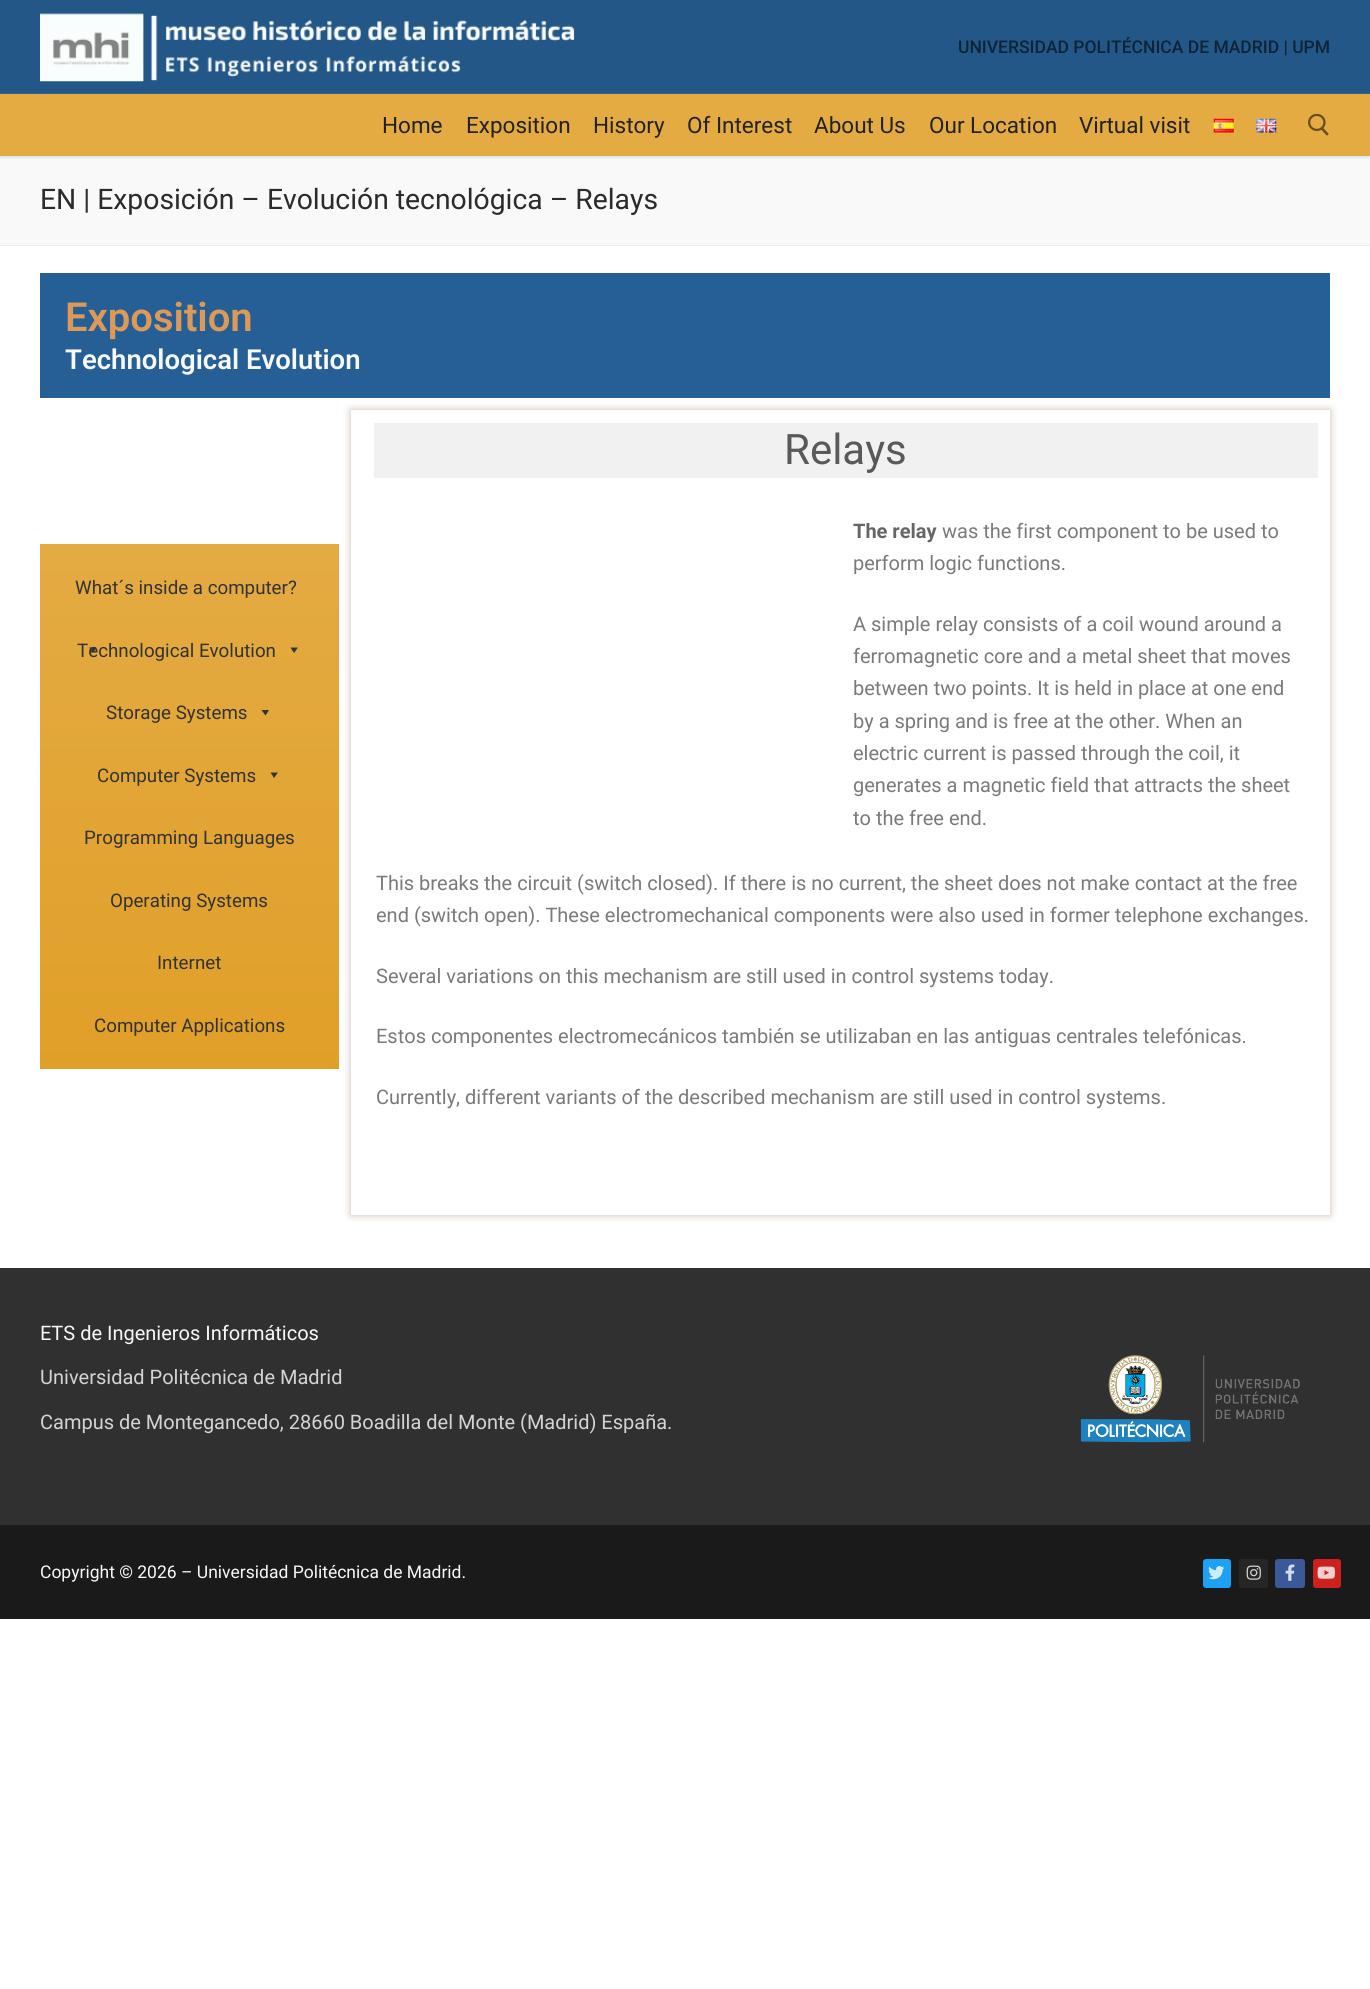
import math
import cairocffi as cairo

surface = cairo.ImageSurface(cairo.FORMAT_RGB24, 1370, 1989)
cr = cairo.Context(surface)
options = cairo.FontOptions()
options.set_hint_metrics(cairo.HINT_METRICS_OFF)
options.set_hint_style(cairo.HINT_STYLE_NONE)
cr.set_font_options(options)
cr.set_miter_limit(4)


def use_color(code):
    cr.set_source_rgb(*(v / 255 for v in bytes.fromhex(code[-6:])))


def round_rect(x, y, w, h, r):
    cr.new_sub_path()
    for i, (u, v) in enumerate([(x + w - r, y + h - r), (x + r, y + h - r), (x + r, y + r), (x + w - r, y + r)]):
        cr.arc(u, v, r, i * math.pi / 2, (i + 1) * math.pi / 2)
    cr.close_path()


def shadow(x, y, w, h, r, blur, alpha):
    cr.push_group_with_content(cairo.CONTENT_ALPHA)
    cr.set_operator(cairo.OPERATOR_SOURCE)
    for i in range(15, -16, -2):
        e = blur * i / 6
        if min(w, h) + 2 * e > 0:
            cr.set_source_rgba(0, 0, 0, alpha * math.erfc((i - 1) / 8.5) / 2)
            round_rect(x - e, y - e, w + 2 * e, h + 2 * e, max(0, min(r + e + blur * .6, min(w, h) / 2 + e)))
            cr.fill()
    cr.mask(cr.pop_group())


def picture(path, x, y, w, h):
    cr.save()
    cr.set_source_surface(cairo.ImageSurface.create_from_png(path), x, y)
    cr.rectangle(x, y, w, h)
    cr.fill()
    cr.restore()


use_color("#ffffff")
cr.paint()
use_color("#235787")
cr.rectangle(0, 0, 1370, 94)
cr.fill()
picture("img1.png", 40, 13, 535, 69)
cr.select_font_face("Roboto Medium")
cr.set_font_size(17.5)
use_color("#0e2336")
cr.move_to(958, 53)
cr.show_text("UNIVERSIDAD POLITÉCNICA DE MADRID | UPM")
use_color("#f9f9f9")
cr.rectangle(0, 156, 1370, 89)
cr.fill()
use_color("#e1e5ea")
shadow(0, 95, 1370, 63, 0, 1, 1)
use_color("#e4ab43")
cr.rectangle(0, 94, 1370, 62)
cr.fill()
cr.select_font_face("Roboto")
cr.set_font_size(22.5)
use_color("#222222")
cr.move_to(382, 133)
cr.show_text("Home")
cr.move_to(466, 133)
cr.show_text("Exposition")
cr.move_to(593, 133)
cr.show_text("History")
cr.move_to(687, 133)
cr.show_text("Of Interest")
cr.move_to(814, 133)
cr.show_text("About Us")
cr.move_to(929, 133)
cr.show_text("Our Location")
cr.move_to(1079, 133)
cr.show_text("Virtual visit")
picture("img2.png", 1213, 118, 21, 15)
picture("img3.png", 1256, 118, 21, 15)
picture("img4.png", 1308, 114, 21, 22)
use_color("#eaecee")
cr.rectangle(0, 245, 1370, 1)
cr.fill()
cr.set_font_size(28.3)
use_color("#2b2b2b")
cr.move_to(40, 209)
cr.show_text("EN | Exposición – Evolución tecnológica – Relays")
use_color("#255f95")
cr.rectangle(40, 273, 1290, 125)
cr.fill()
cr.select_font_face("Roboto SemiBold")
cr.set_font_size(40)
use_color("#dc9957")
cr.move_to(65, 331)
cr.show_text("Exposition")
cr.set_font_size(27.5)
use_color("#f8f8f8")
cr.move_to(65, 369)
cr.show_text("Technological Evolution")
gradient = cairo.LinearGradient(189, 544, 189, 1069)
gradient.add_color_stop_rgba(0, 0.894, 0.671, 0.263, 1)
gradient.add_color_stop_rgba(1, 0.878, 0.624, 0.157, 1)
cr.set_source(gradient)
cr.rectangle(40, 544, 299, 525)
cr.fill()
cr.select_font_face("Roboto")
cr.set_font_size(18.75)
use_color("#333333")
cr.move_to(75, 594)
cr.show_text("What´s inside a computer?")
cr.new_path()
cr.move_to(96.5, 647.5)
cr.line_to(93, 653)
cr.line_to(89, 647.5)
cr.close_path()
cr.fill()
cr.move_to(77, 657)
cr.show_text("Technological Evolution")
cr.new_path()
cr.move_to(298, 647.5)
cr.line_to(294, 653)
cr.line_to(290.5, 647.5)
cr.close_path()
cr.fill()
cr.move_to(106, 719)
cr.show_text("Storage Systems")
cr.new_path()
cr.move_to(269, 710)
cr.line_to(265.5, 715.5)
cr.line_to(261.5, 710)
cr.close_path()
cr.fill()
cr.move_to(97, 782)
cr.show_text("Computer Systems")
cr.new_path()
cr.move_to(278, 772.5)
cr.line_to(274, 778)
cr.line_to(270.5, 772.5)
cr.close_path()
cr.fill()
cr.move_to(84, 844)
cr.show_text("Programming Languages")
cr.move_to(110, 907)
cr.show_text("Operating Systems")
cr.move_to(157, 969)
cr.show_text("Internet")
cr.move_to(94, 1032)
cr.show_text("Computer Applications")
cr.save()
cr.set_fill_rule(cairo.FILL_RULE_EVEN_ODD)
cr.new_path()
cr.move_to(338, 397)
cr.line_to(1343, 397)
cr.line_to(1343, 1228)
cr.line_to(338, 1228)
cr.close_path()
cr.move_to(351, 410)
cr.line_to(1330, 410)
cr.line_to(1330, 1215)
cr.line_to(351, 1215)
cr.close_path()
cr.clip()
use_color("#8f7657")
shadow(351, 410, 979, 805, 0, 4, 0.49)
cr.restore()
use_color("#f1f1f1")
cr.rectangle(374, 423, 944, 55)
cr.fill()
cr.set_font_size(42)
use_color("#585959")
cr.move_to(784, 464)
cr.show_text("Relays")
cr.select_font_face("Roboto", cairo.FONT_SLANT_NORMAL, cairo.FONT_WEIGHT_BOLD)
cr.set_font_size(20)
use_color("#666666")
cr.move_to(853, 538)
cr.show_text("The relay")
cr.select_font_face("Roboto")
use_color("#7a7a7a")
cr.move_to(942, 538)
cr.show_text("was the first component to be used to")
cr.move_to(853, 570)
cr.show_text("perform logic functions.")
cr.move_to(853, 631)
cr.show_text("A simple relay consists of a coil wound around a")
cr.move_to(853, 663)
cr.show_text("ferromagnetic core and a metal sheet that moves")
cr.move_to(853, 695)
cr.show_text("between two points. It is held in place at one end")
cr.move_to(853, 728)
cr.show_text("by a spring and is free at the other. When an")
cr.move_to(853, 760)
cr.show_text("electric current is passed through the coil, it")
cr.move_to(853, 792)
cr.show_text("generates a magnetic field that attracts the sheet")
cr.move_to(853, 825)
cr.show_text("to the free end.")
cr.move_to(376, 890)
cr.show_text("This breaks the circuit (switch closed). If there is no current, the sheet does not make contact at the free")
cr.move_to(376, 922)
cr.show_text("end (switch open). These electromechanical components were also used in former telephone exchanges.")
cr.move_to(376, 983)
cr.show_text("Several variations on this mechanism are still used in control systems today.")
cr.move_to(376, 1043)
cr.show_text("Estos componentes electromecánicos también se utilizaban en las antiguas centrales telefónicas.")
cr.move_to(376, 1104)
cr.show_text("Currently, different variants of the described mechanism are still used in control systems.")
use_color("#303030")
cr.rectangle(0, 1268, 1370, 257)
cr.fill()
use_color("#f8f8f8")
cr.move_to(40, 1340)
cr.show_text("ETS de Ingenieros Informáticos")
use_color("#d4d4d4")
cr.move_to(40, 1384)
cr.show_text("Universidad Politécnica de Madrid")
cr.move_to(40, 1429)
cr.show_text("Campus de Montegancedo, 28660 Boadilla del Monte (Madrid) España.")
picture("img5.png", 1080, 1355, 220, 88)
use_color("#1a1a1a")
cr.rectangle(0, 1525, 1370, 94)
cr.fill()
cr.set_font_size(17.5)
use_color("#f8f8f8")
cr.move_to(40, 1578)
cr.show_text("Copyright © 2026 – Universidad Politécnica de Madrid.")
use_color("#1da1f2")
round_rect(1203, 1559, 28, 29, 3)
cr.fill()
picture("img6.png", 1208, 1566, 17, 14)
use_color("#262626")
round_rect(1239, 1559, 29, 29, 3)
cr.fill()
picture("img7.png", 1246, 1565, 15, 15)
use_color("#3b5998")
round_rect(1275, 1559, 30, 29, 3)
cr.fill()
picture("img8.png", 1285, 1564, 10, 17)
use_color("#cd201f")
round_rect(1313, 1559, 28, 29, 3)
cr.fill()
picture("img9.png", 1317, 1566, 18, 13)
surface.write_to_png("result.png")
